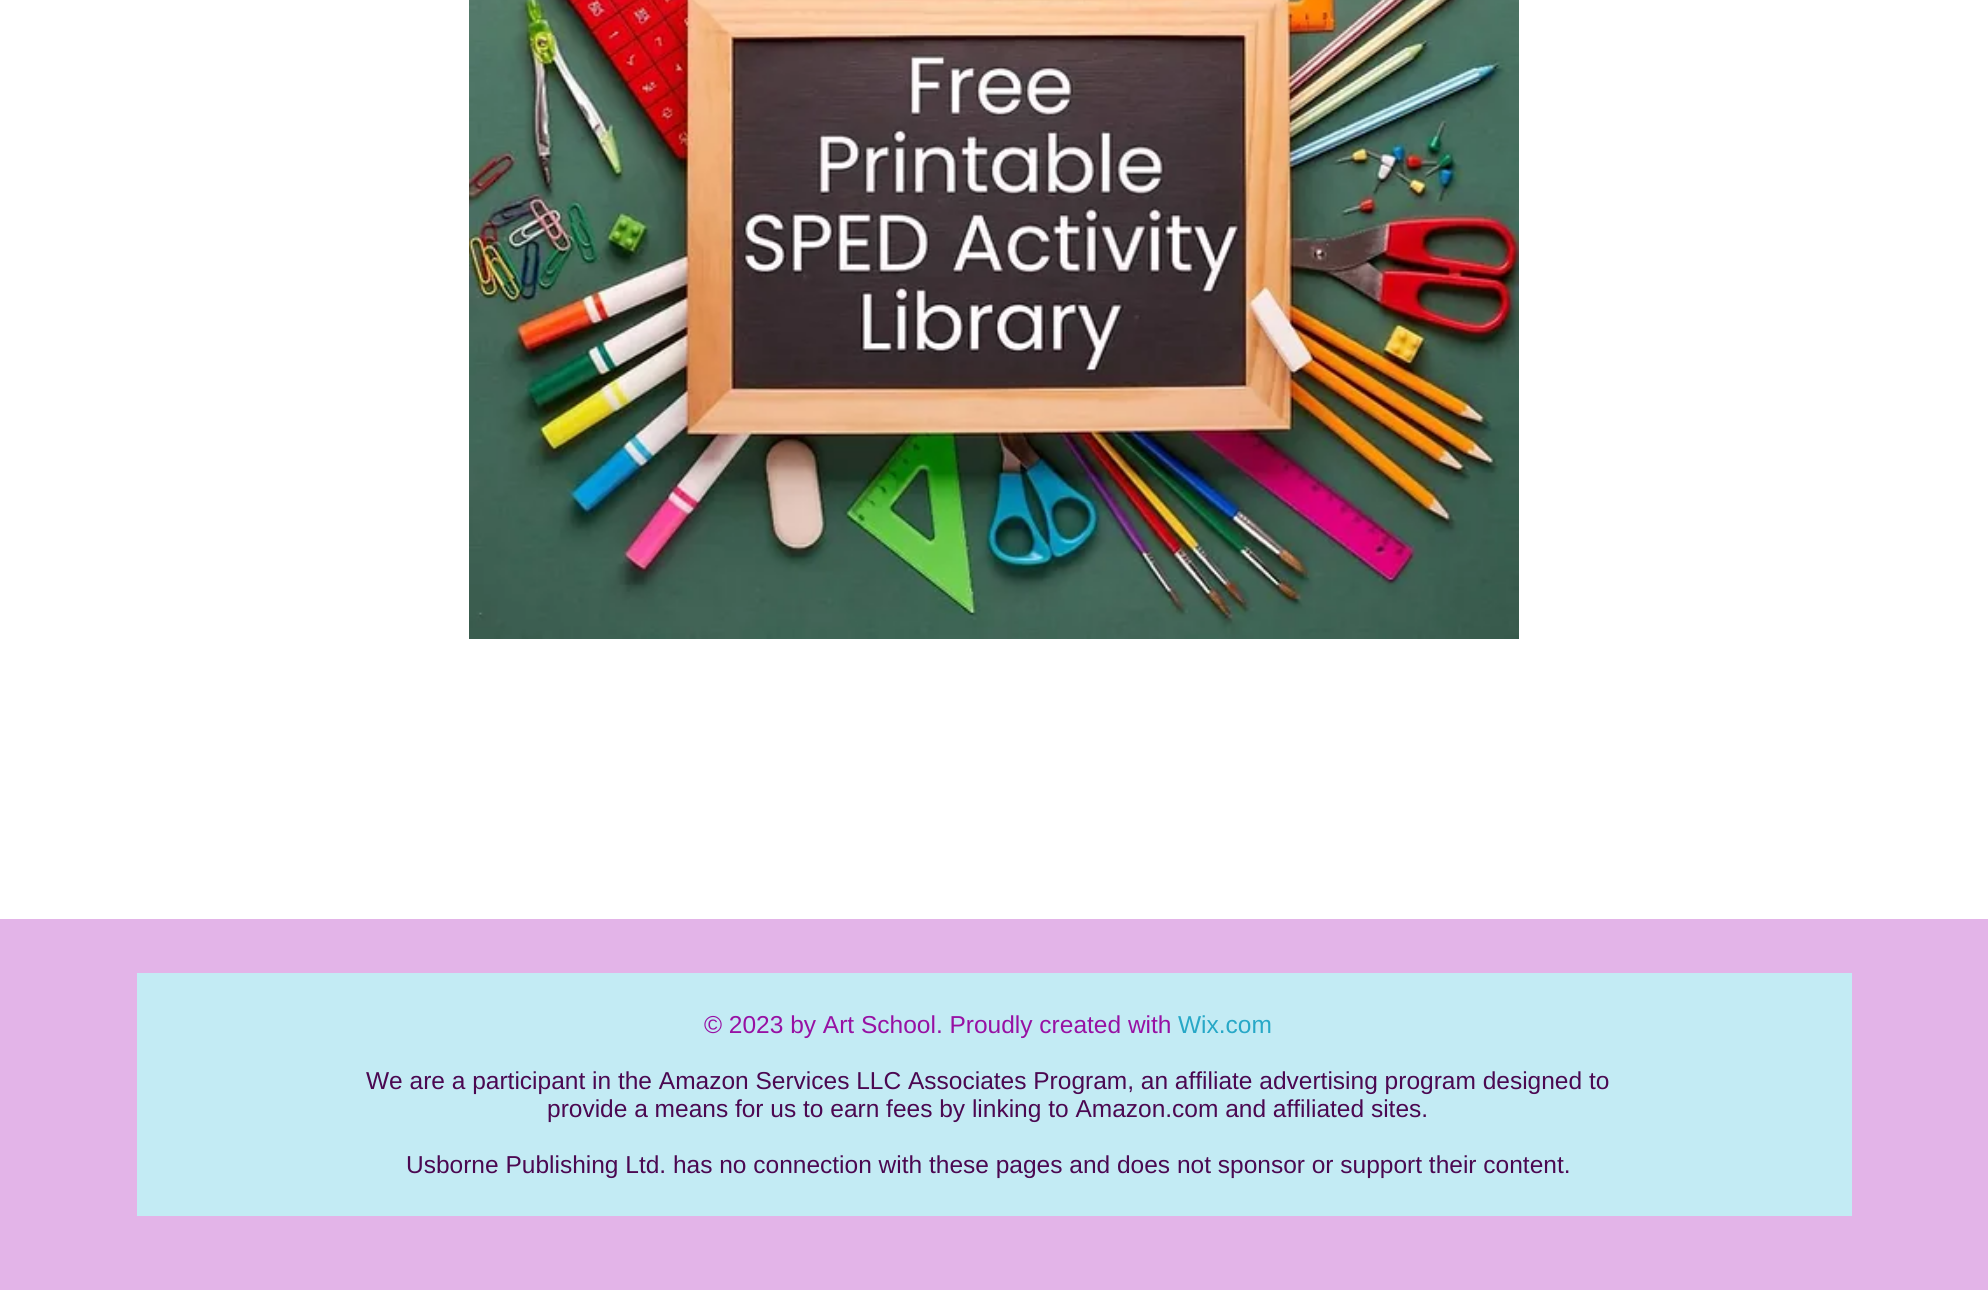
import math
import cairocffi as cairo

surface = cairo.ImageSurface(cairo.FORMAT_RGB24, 1988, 1290)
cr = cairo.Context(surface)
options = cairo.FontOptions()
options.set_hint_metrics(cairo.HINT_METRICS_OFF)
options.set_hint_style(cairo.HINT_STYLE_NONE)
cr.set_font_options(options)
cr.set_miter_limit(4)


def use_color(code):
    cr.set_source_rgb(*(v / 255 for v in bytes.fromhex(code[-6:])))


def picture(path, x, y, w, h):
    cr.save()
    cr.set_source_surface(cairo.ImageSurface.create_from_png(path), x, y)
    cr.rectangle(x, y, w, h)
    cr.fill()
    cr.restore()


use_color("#e3b4e8")
cr.paint()
use_color("#ffffff")
cr.rectangle(0, 0, 1988, 919)
cr.fill()
picture("img1.png", 469, 0, 1050, 639)
use_color("#c3ebf4")
cr.rectangle(137, 973, 1715, 243)
cr.fill()
cr.select_font_face("Liberation Sans")
cr.set_font_size(24.5)
use_color("#9711a3")
cr.move_to(704, 1033)
cr.show_text("© 2023 by Art School. Proudly created with")
use_color("#27a8c7")
cr.move_to(1178, 1033)
cr.show_text("Wix.com")
use_color("#4b0851")
cr.move_to(366, 1089)
cr.show_text("We are a participant in the Amazon Services LLC Associates Program, an affiliate advertising program designed to")
cr.move_to(547, 1117)
cr.show_text("provide a means for us to earn fees by linking to Amazon.com and affiliated sites.")
cr.move_to(406, 1173)
cr.show_text("Usborne Publishing Ltd. has no connection with these pages and does not sponsor or support their content.")
surface.write_to_png("result.png")
